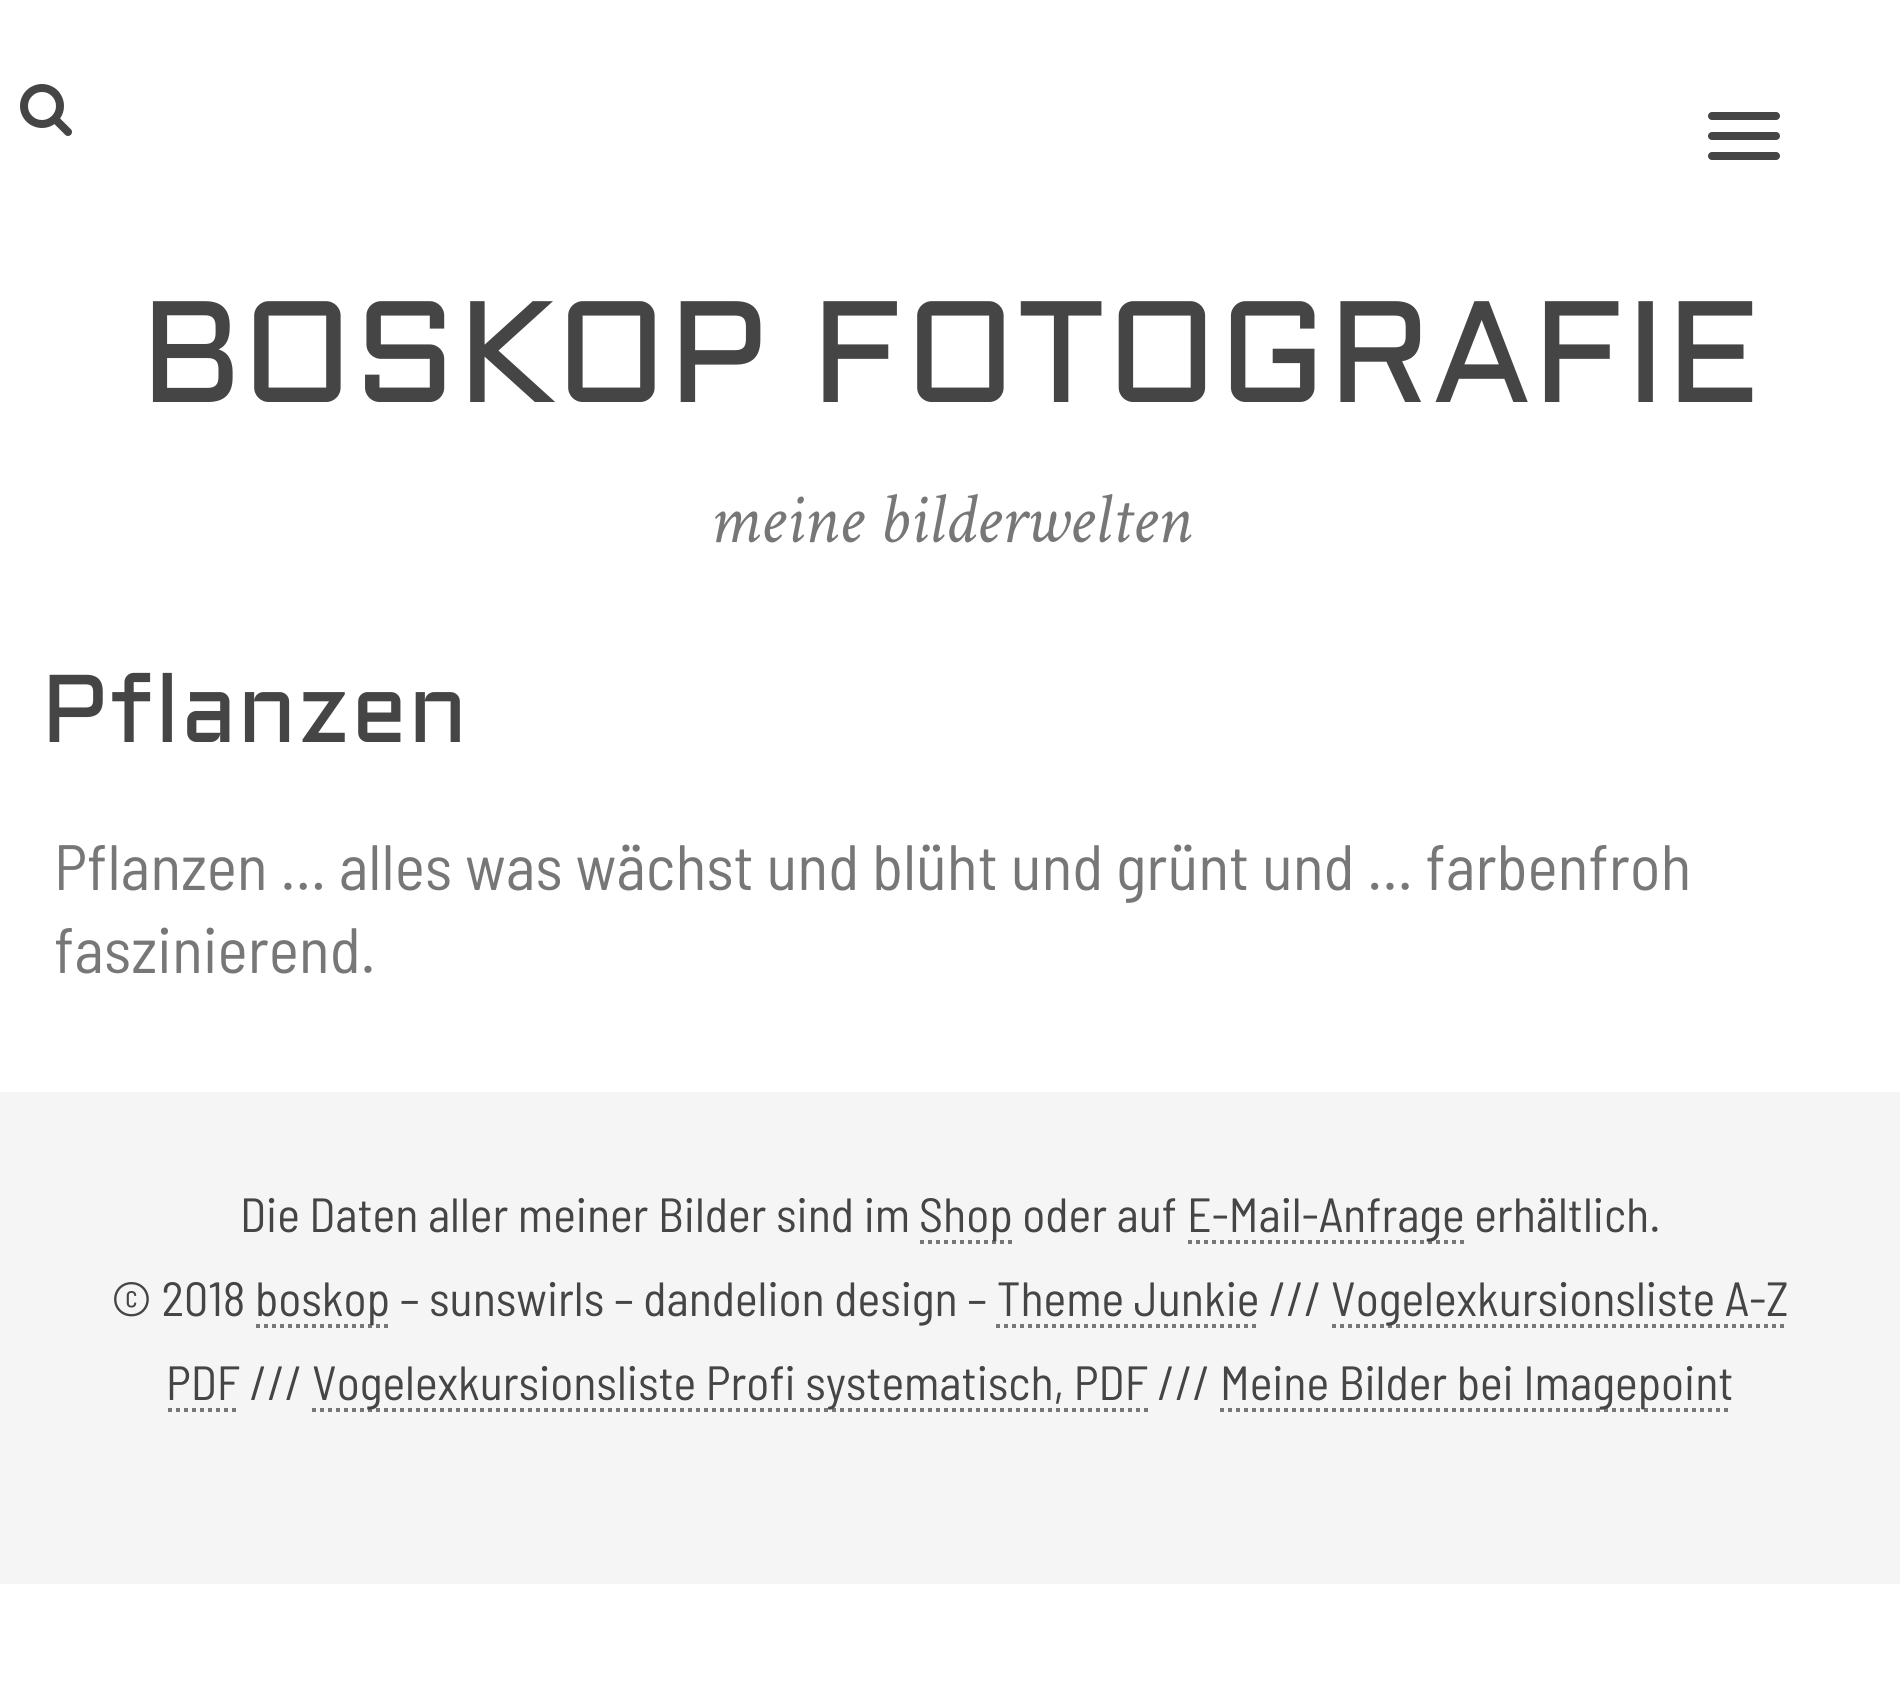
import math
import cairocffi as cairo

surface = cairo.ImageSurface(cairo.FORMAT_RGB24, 1900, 1681)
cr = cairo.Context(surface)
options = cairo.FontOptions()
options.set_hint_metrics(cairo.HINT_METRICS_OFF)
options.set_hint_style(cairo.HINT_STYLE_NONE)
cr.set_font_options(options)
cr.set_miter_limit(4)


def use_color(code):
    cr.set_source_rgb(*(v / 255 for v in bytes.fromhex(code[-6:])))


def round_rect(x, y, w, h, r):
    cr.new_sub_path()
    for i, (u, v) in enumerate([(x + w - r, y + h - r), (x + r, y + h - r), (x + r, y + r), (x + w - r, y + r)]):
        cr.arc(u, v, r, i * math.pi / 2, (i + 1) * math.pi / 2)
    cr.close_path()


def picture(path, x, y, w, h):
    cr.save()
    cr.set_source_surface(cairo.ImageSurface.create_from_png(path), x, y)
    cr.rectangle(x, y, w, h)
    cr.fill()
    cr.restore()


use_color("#ffffff")
cr.paint()
picture("img1.png", 20, 84, 52, 52)
use_color("#454545")
round_rect(1708, 112, 72, 8, 4)
cr.fill()
round_rect(1708, 132, 72, 8, 4)
cr.fill()
round_rect(1708, 152, 72, 8, 4)
cr.fill()
cr.select_font_face("Aldrich")
cr.set_font_size(144)
cr.move_to(140, 402)
cr.show_text("BOSKOP FOTOGRAFIE")
cr.select_font_face("Crimson Text", cairo.FONT_SLANT_ITALIC)
cr.set_font_size(72)
use_color("#777777")
cr.move_to(709, 542)
cr.show_text("meine bilderwelten")
cr.select_font_face("Aldrich")
cr.set_font_size(96)
use_color("#454545")
cr.move_to(41, 742)
cr.show_text("Pflanzen")
cr.select_font_face("Barlow Semi Condensed")
cr.set_font_size(64)
use_color("#777777")
cr.move_to(54, 890)
cr.show_text("Pflanzen … alles was wächst und blüht und grünt und … farbenfroh")
cr.move_to(54, 973)
cr.show_text("faszinierend.")
use_color("#f5f5f5")
cr.rectangle(0, 1092, 1900, 492)
cr.fill()
cr.set_font_size(48)
use_color("#454545")
cr.move_to(240, 1232)
cr.show_text("Die Daten aller meiner Bilder sind im")
cr.new_path()
cr.move_to(920, 1242)
cr.line_to(1012, 1242)
use_color("#777777")
cr.set_line_width(4)
cr.set_dash([4, 4])
cr.stroke()
use_color("#454545")
cr.move_to(919, 1232)
cr.show_text("Shop oder auf")
cr.new_path()
cr.move_to(1188, 1242)
cr.line_to(1464, 1242)
use_color("#777777")
cr.stroke()
use_color("#454545")
cr.move_to(1187, 1232)
cr.show_text("E-Mail-Anfrage erhältlich.")
cr.move_to(111, 1316)
cr.show_text("© 2018")
cr.new_path()
cr.move_to(256, 1326)
cr.line_to(392, 1326)
use_color("#777777")
cr.stroke()
use_color("#454545")
cr.move_to(255, 1316)
cr.show_text("boskop – sunswirls – dandelion design – Theme Junkie ///")
cr.new_path()
cr.move_to(1332, 1326)
cr.line_to(1788, 1326)
use_color("#777777")
cr.stroke()
use_color("#454545")
cr.move_to(1331, 1316)
cr.show_text("Vogelexkursionsliste A-Z")
cr.new_path()
cr.move_to(996, 1326)
cr.line_to(1260, 1326)
use_color("#777777")
cr.stroke()
use_color("#454545")
cr.move_to(166, 1400)
cr.show_text("PDF ///")
cr.new_path()
cr.move_to(168, 1410)
cr.line_to(240, 1410)
use_color("#777777")
cr.stroke()
cr.new_path()
cr.move_to(312, 1410)
cr.line_to(1148, 1410)
cr.stroke()
use_color("#454545")
cr.move_to(312, 1400)
cr.show_text("Vogelexkursionsliste Profi systematisch, PDF ///")
cr.new_path()
cr.move_to(1220, 1410)
cr.line_to(1732, 1410)
use_color("#777777")
cr.stroke()
use_color("#454545")
cr.move_to(1220, 1400)
cr.show_text("Meine Bilder bei Imagepoint")
surface.write_to_png("result.png")
